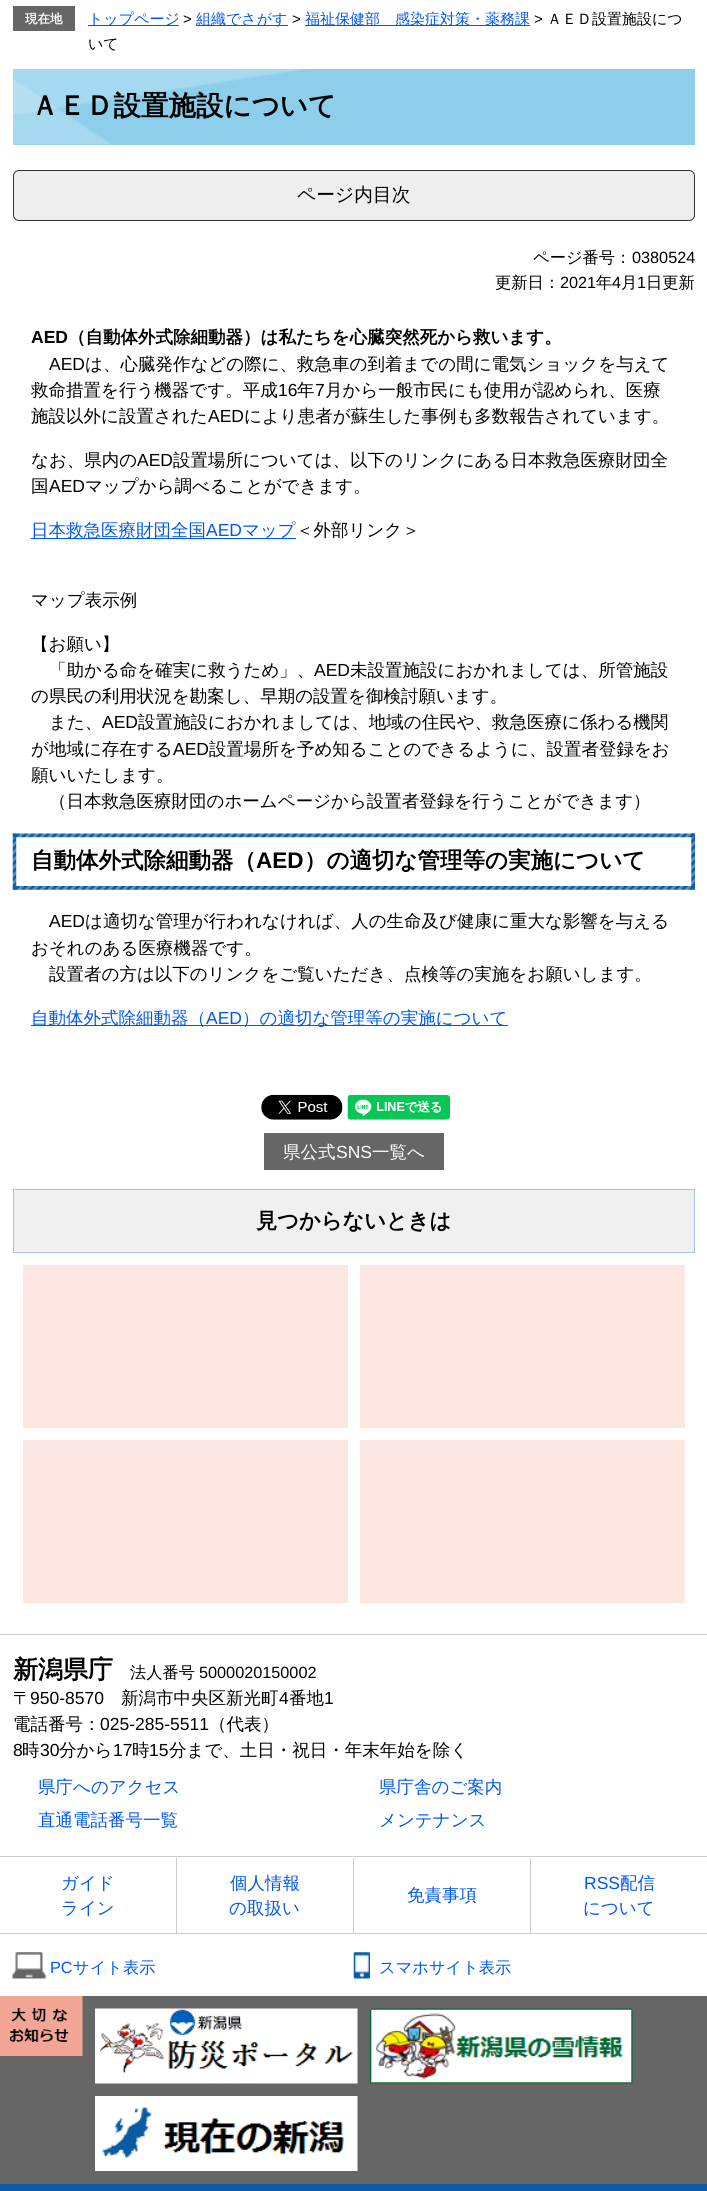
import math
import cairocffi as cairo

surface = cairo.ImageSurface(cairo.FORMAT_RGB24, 707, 2191)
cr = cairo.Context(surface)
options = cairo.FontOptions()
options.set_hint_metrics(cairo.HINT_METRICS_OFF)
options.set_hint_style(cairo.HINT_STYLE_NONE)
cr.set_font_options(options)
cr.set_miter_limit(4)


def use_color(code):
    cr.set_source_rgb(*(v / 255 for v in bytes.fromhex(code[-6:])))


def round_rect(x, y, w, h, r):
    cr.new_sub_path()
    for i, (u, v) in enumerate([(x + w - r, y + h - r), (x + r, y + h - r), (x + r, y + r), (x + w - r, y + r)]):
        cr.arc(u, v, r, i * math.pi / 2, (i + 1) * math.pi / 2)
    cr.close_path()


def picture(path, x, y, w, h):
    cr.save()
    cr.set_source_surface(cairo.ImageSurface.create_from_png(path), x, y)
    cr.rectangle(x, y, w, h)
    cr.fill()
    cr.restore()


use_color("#ffffff")
cr.paint()
use_color("#666666")
cr.rectangle(13, 6, 62, 25)
cr.fill()
cr.select_font_face("WenQuanYi Zen Hei", cairo.FONT_SLANT_NORMAL, cairo.FONT_WEIGHT_BOLD)
cr.set_font_size(12.5)
use_color("#ffffff")
cr.move_to(25, 23)
cr.show_text("現在地")
use_color("#0058ea")
cr.rectangle(88, 25, 91, 1)
cr.fill()
cr.select_font_face("WenQuanYi Zen Hei Medium")
cr.set_font_size(15)
cr.move_to(88, 24)
cr.show_text("トップページ")
cr.select_font_face("Liberation Sans")
use_color("#000000")
cr.move_to(183, 24)
cr.show_text(">")
use_color("#0058ea")
cr.rectangle(196, 25, 92, 1)
cr.fill()
cr.select_font_face("WenQuanYi Zen Hei Medium")
cr.move_to(196, 24)
cr.show_text("組織でさがす")
cr.select_font_face("Liberation Sans")
use_color("#000000")
cr.move_to(292, 24)
cr.show_text(">")
use_color("#0058ea")
cr.rectangle(305, 25, 225, 1)
cr.fill()
cr.select_font_face("WenQuanYi Zen Hei Medium")
cr.move_to(305, 24)
cr.show_text("福祉保健部　感染症対策・薬務課")
cr.select_font_face("Liberation Sans")
use_color("#000000")
cr.move_to(534, 24)
cr.show_text(">")
cr.select_font_face("WenQuanYi Zen Hei Medium")
cr.move_to(547, 24)
cr.show_text("ＡＥＤ設置施設につ")
cr.move_to(88, 49)
cr.show_text("いて")
use_color("#8dcfeb")
cr.rectangle(13, 69, 682, 76)
cr.fill()
picture("img1.png", 13, 69, 294, 76)
cr.select_font_face("WenQuanYi Zen Hei", cairo.FONT_SLANT_NORMAL, cairo.FONT_WEIGHT_BOLD)
cr.set_font_size(27.5)
use_color("#000000")
cr.move_to(31, 115)
cr.show_text("ＡＥＤ設置施設について")
use_color("#eeeeee")
round_rect(13.5, 170.5, 681, 50, 5.5)
cr.fill_preserve()
use_color("#333333")
cr.set_line_width(1)
cr.stroke()
cr.select_font_face("WenQuanYi Zen Hei Medium")
cr.set_font_size(18.75)
use_color("#000000")
cr.move_to(297, 201)
cr.show_text("ページ内目次")
cr.set_font_size(16.25)
cr.move_to(533, 263)
cr.show_text("ページ番号：")
cr.select_font_face("Liberation Sans")
cr.move_to(632, 263)
cr.show_text("0380524")
cr.select_font_face("WenQuanYi Zen Hei Medium")
cr.move_to(495, 288)
cr.show_text("更新日：")
cr.select_font_face("Liberation Sans")
cr.move_to(560, 288)
cr.show_text("2021")
cr.select_font_face("WenQuanYi Zen Hei Medium")
cr.move_to(596, 288)
cr.show_text("年")
cr.select_font_face("Liberation Sans")
cr.move_to(612, 288)
cr.show_text("4")
cr.select_font_face("WenQuanYi Zen Hei Medium")
cr.move_to(621, 288)
cr.show_text("月")
cr.select_font_face("Liberation Sans")
cr.move_to(637, 288)
cr.show_text("1")
cr.select_font_face("WenQuanYi Zen Hei Medium")
cr.move_to(646, 288)
cr.show_text("日更新")
cr.select_font_face("Liberation Sans", cairo.FONT_SLANT_NORMAL, cairo.FONT_WEIGHT_BOLD)
cr.set_font_size(17.5)
cr.move_to(31, 343)
cr.show_text("AED")
cr.select_font_face("WenQuanYi Zen Hei", cairo.FONT_SLANT_NORMAL, cairo.FONT_WEIGHT_BOLD)
cr.move_to(68, 343)
cr.show_text("（自動体外式除細動器）は私たちを心臓突然死から救います。")
cr.select_font_face("Liberation Sans")
cr.move_to(49, 370)
cr.show_text("AED")
cr.select_font_face("WenQuanYi Zen Hei Medium")
cr.move_to(85, 370)
cr.show_text("は、心臓発作などの際に、救急車の到着までの間に電気ショックを与えて")
cr.move_to(31, 396)
cr.show_text("救命措置を行う機器です。平成")
cr.select_font_face("Liberation Sans")
cr.move_to(278, 396)
cr.show_text("16")
cr.select_font_face("WenQuanYi Zen Hei Medium")
cr.move_to(297, 396)
cr.show_text("年")
cr.select_font_face("Liberation Sans")
cr.move_to(315, 396)
cr.show_text("7")
cr.select_font_face("WenQuanYi Zen Hei Medium")
cr.move_to(325, 396)
cr.show_text("月から一般市民にも使用が認められ、医療")
cr.move_to(31, 422)
cr.show_text("施設以外に設置された")
cr.select_font_face("Liberation Sans")
cr.move_to(208, 422)
cr.show_text("AED")
cr.select_font_face("WenQuanYi Zen Hei Medium")
cr.move_to(244, 422)
cr.show_text("により患者が蘇生した事例も多数報告されています。")
cr.move_to(31, 466)
cr.show_text("なお、県内の")
cr.select_font_face("Liberation Sans")
cr.move_to(137, 466)
cr.show_text("AED")
cr.select_font_face("WenQuanYi Zen Hei Medium")
cr.move_to(173, 466)
cr.show_text("設置場所については、以下のリンクにある日本救急医療財団全")
cr.move_to(31, 492)
cr.show_text("国")
cr.select_font_face("Liberation Sans")
cr.move_to(49, 492)
cr.show_text("AED")
cr.select_font_face("WenQuanYi Zen Hei Medium")
cr.move_to(85, 492)
cr.show_text("マップから調べることができます。")
use_color("#0058ea")
cr.rectangle(31, 538, 265, 1)
cr.fill()
cr.move_to(31, 536)
cr.show_text("日本救急医療財団全国")
cr.select_font_face("Liberation Sans")
cr.move_to(206, 536)
cr.show_text("AED")
cr.select_font_face("WenQuanYi Zen Hei Medium")
cr.move_to(242, 536)
cr.show_text("マップ")
use_color("#000000")
cr.move_to(296, 536)
cr.show_text("＜外部リンク＞")
cr.move_to(31, 606)
cr.show_text("マップ表示例")
cr.move_to(31, 650)
cr.show_text("【お願い】")
cr.move_to(49, 676)
cr.show_text("「助かる命を確実に救うため」、")
cr.select_font_face("Liberation Sans")
cr.move_to(314, 676)
cr.show_text("AED")
cr.select_font_face("WenQuanYi Zen Hei Medium")
cr.move_to(350, 676)
cr.show_text("未設置施設におかれましては、所管施設")
cr.move_to(31, 702)
cr.show_text("の県民の利用状況を勘案し、早期の設置を御検討願います。")
cr.move_to(49, 728)
cr.show_text("また、")
cr.select_font_face("Liberation Sans")
cr.move_to(102, 728)
cr.show_text("AED")
cr.select_font_face("WenQuanYi Zen Hei Medium")
cr.move_to(138, 728)
cr.show_text("設置施設におかれましては、地域の住民や、救急医療に係わる機関")
cr.move_to(31, 755)
cr.show_text("が地域に存在する")
cr.select_font_face("Liberation Sans")
cr.move_to(173, 755)
cr.show_text("AED")
cr.select_font_face("WenQuanYi Zen Hei Medium")
cr.move_to(209, 755)
cr.show_text("設置場所を予め知ることのできるように、設置者登録をお")
cr.move_to(31, 781)
cr.show_text("願いいたします。")
cr.move_to(49, 807)
cr.show_text("（日本救急医療財団のホームページから設置者登録を行うことができます）")
picture("img2.png", 12, 833, 683, 57)
cr.select_font_face("WenQuanYi Zen Hei", cairo.FONT_SLANT_NORMAL, cairo.FONT_WEIGHT_BOLD)
cr.set_font_size(22.5)
cr.move_to(31, 868)
cr.show_text("自動体外式除細動器（")
cr.select_font_face("Liberation Sans", cairo.FONT_SLANT_NORMAL, cairo.FONT_WEIGHT_BOLD)
cr.move_to(256, 868)
cr.show_text("AED")
cr.select_font_face("WenQuanYi Zen Hei", cairo.FONT_SLANT_NORMAL, cairo.FONT_WEIGHT_BOLD)
cr.move_to(304, 868)
cr.show_text("）の適切な管理等の実施について")
cr.select_font_face("Liberation Sans")
cr.set_font_size(17.5)
cr.move_to(49, 927)
cr.show_text("AED")
cr.select_font_face("WenQuanYi Zen Hei Medium")
cr.move_to(85, 927)
cr.show_text("は適切な管理が行われなければ、人の生命及び健康に重大な影響を与える")
cr.move_to(31, 954)
cr.show_text("おそれのある医療機器です。")
cr.move_to(49, 980)
cr.show_text("設置者の方は以下のリンクをご覧いただき、点検等の実施をお願いします。")
use_color("#0058ea")
cr.rectangle(31, 1025, 477, 1)
cr.fill()
cr.move_to(31, 1024)
cr.show_text("自動体外式除細動器（")
cr.select_font_face("Liberation Sans")
cr.move_to(206, 1024)
cr.show_text("AED")
cr.select_font_face("WenQuanYi Zen Hei Medium")
cr.move_to(242, 1024)
cr.show_text("）の適切な管理等の実施について")
picture("img3.png", 261, 1094, 82, 26)
picture("img4.png", 347, 1094, 103, 26)
use_color("#666666")
cr.rectangle(264, 1133, 180, 37)
cr.fill()
use_color("#ffffff")
cr.move_to(283, 1158)
cr.show_text("県公式")
cr.select_font_face("Liberation Sans")
cr.move_to(336, 1158)
cr.show_text("SNS")
cr.select_font_face("WenQuanYi Zen Hei Medium")
cr.move_to(372, 1158)
cr.show_text("一覧へ")
use_color("#f0f0f0")
cr.rectangle(13.5, 1189.5, 681, 63)
cr.fill_preserve()
use_color("#a8c2ee")
cr.stroke()
cr.select_font_face("WenQuanYi Zen Hei", cairo.FONT_SLANT_NORMAL, cairo.FONT_WEIGHT_BOLD)
cr.set_font_size(21.25)
use_color("#000000")
cr.move_to(256, 1228)
cr.show_text("見つからないときは")
use_color("#fce7e2")
cr.rectangle(23, 1265, 325, 163)
cr.fill()
cr.rectangle(360, 1265, 325, 163)
cr.fill()
cr.rectangle(23, 1440, 325, 163)
cr.fill()
cr.rectangle(360, 1440, 325, 163)
cr.fill()
use_color("#cccccc")
cr.rectangle(0, 1634, 707, 1)
cr.fill()
cr.rectangle(0, 1856, 707, 1)
cr.fill()
cr.set_font_size(25)
use_color("#000000")
cr.move_to(13, 1678)
cr.show_text("新潟県庁")
cr.select_font_face("WenQuanYi Zen Hei Medium")
cr.set_font_size(16.25)
cr.move_to(130, 1678)
cr.show_text("法人番号")
cr.select_font_face("Liberation Sans")
cr.move_to(199, 1678)
cr.show_text("5000020150002")
cr.select_font_face("WenQuanYi Zen Hei Medium")
cr.set_font_size(17.5)
cr.move_to(13, 1704)
cr.show_text("〒")
cr.select_font_face("Liberation Sans")
cr.move_to(30, 1704)
cr.show_text("950-8570")
cr.select_font_face("WenQuanYi Zen Hei Medium")
cr.move_to(121, 1704)
cr.show_text("新潟市中央区新光町")
cr.select_font_face("Liberation Sans")
cr.move_to(279, 1704)
cr.show_text("4")
cr.select_font_face("WenQuanYi Zen Hei Medium")
cr.move_to(289, 1704)
cr.show_text("番地")
cr.select_font_face("Liberation Sans")
cr.move_to(324, 1704)
cr.show_text("1")
cr.select_font_face("WenQuanYi Zen Hei Medium")
cr.move_to(13, 1730)
cr.show_text("電話番号：")
cr.select_font_face("Liberation Sans")
cr.move_to(100, 1730)
cr.show_text("025-285-5511")
cr.select_font_face("WenQuanYi Zen Hei Medium")
cr.move_to(209, 1730)
cr.show_text("（代表）")
cr.select_font_face("Liberation Sans")
cr.move_to(13, 1756)
cr.show_text("8")
cr.select_font_face("WenQuanYi Zen Hei Medium")
cr.move_to(22, 1756)
cr.show_text("時")
cr.select_font_face("Liberation Sans")
cr.move_to(40, 1756)
cr.show_text("30")
cr.select_font_face("WenQuanYi Zen Hei Medium")
cr.move_to(59, 1756)
cr.show_text("分から")
cr.select_font_face("Liberation Sans")
cr.move_to(113, 1756)
cr.show_text("17")
cr.select_font_face("WenQuanYi Zen Hei Medium")
cr.move_to(132, 1756)
cr.show_text("時")
cr.select_font_face("Liberation Sans")
cr.move_to(149, 1756)
cr.show_text("15")
cr.select_font_face("WenQuanYi Zen Hei Medium")
cr.move_to(169, 1756)
cr.show_text("分まで、土日・祝日・年末年始を除く")
use_color("#0058ea")
cr.move_to(38, 1793)
cr.show_text("県庁へのアクセス")
cr.move_to(379, 1793)
cr.show_text("県庁舎のご案内")
cr.move_to(38, 1826)
cr.show_text("直通電話番号一覧")
cr.move_to(379, 1826)
cr.show_text("メンテナンス")
use_color("#cccccc")
cr.rectangle(0, 1933, 707, 1)
cr.fill()
cr.rectangle(176, 1858, 1, 75)
cr.fill()
use_color("#0058ea")
cr.move_to(61, 1889)
cr.show_text("ガイド")
cr.move_to(61, 1914)
cr.show_text("ライン")
use_color("#cccccc")
cr.rectangle(353, 1858, 1, 75)
cr.fill()
use_color("#0058ea")
cr.move_to(230, 1889)
cr.show_text("個人情報")
cr.move_to(229, 1914)
cr.show_text("の取扱い")
use_color("#cccccc")
cr.rectangle(530, 1858, 1, 75)
cr.fill()
use_color("#0058ea")
cr.move_to(407, 1901)
cr.show_text("免責事項")
cr.select_font_face("Liberation Sans")
cr.move_to(584, 1889)
cr.show_text("RSS")
cr.select_font_face("WenQuanYi Zen Hei Medium")
cr.move_to(620, 1889)
cr.show_text("配信")
cr.move_to(583, 1914)
cr.show_text("について")
picture("img5.png", 12, 1952, 35, 27)
cr.select_font_face("Liberation Sans")
cr.set_font_size(16.25)
cr.move_to(50, 1973)
cr.show_text("PC")
cr.select_font_face("WenQuanYi Zen Hei Medium")
cr.move_to(73, 1973)
cr.show_text("サイト表示")
picture("img6.png", 353, 1952, 17, 27)
cr.move_to(379, 1973)
cr.show_text("スマホサイト表示")
use_color("#666666")
cr.rectangle(0, 1996, 707, 188)
cr.fill()
picture("img7.png", 0, 1996, 83, 60)
picture("img8.png", 95, 2008, 263, 76)
picture("img9.png", 370, 2008, 263, 76)
picture("img10.png", 95, 2096, 263, 75)
use_color("#095ba5")
cr.rectangle(0, 2184, 707, 7)
cr.fill()
surface.write_to_png("result.png")
